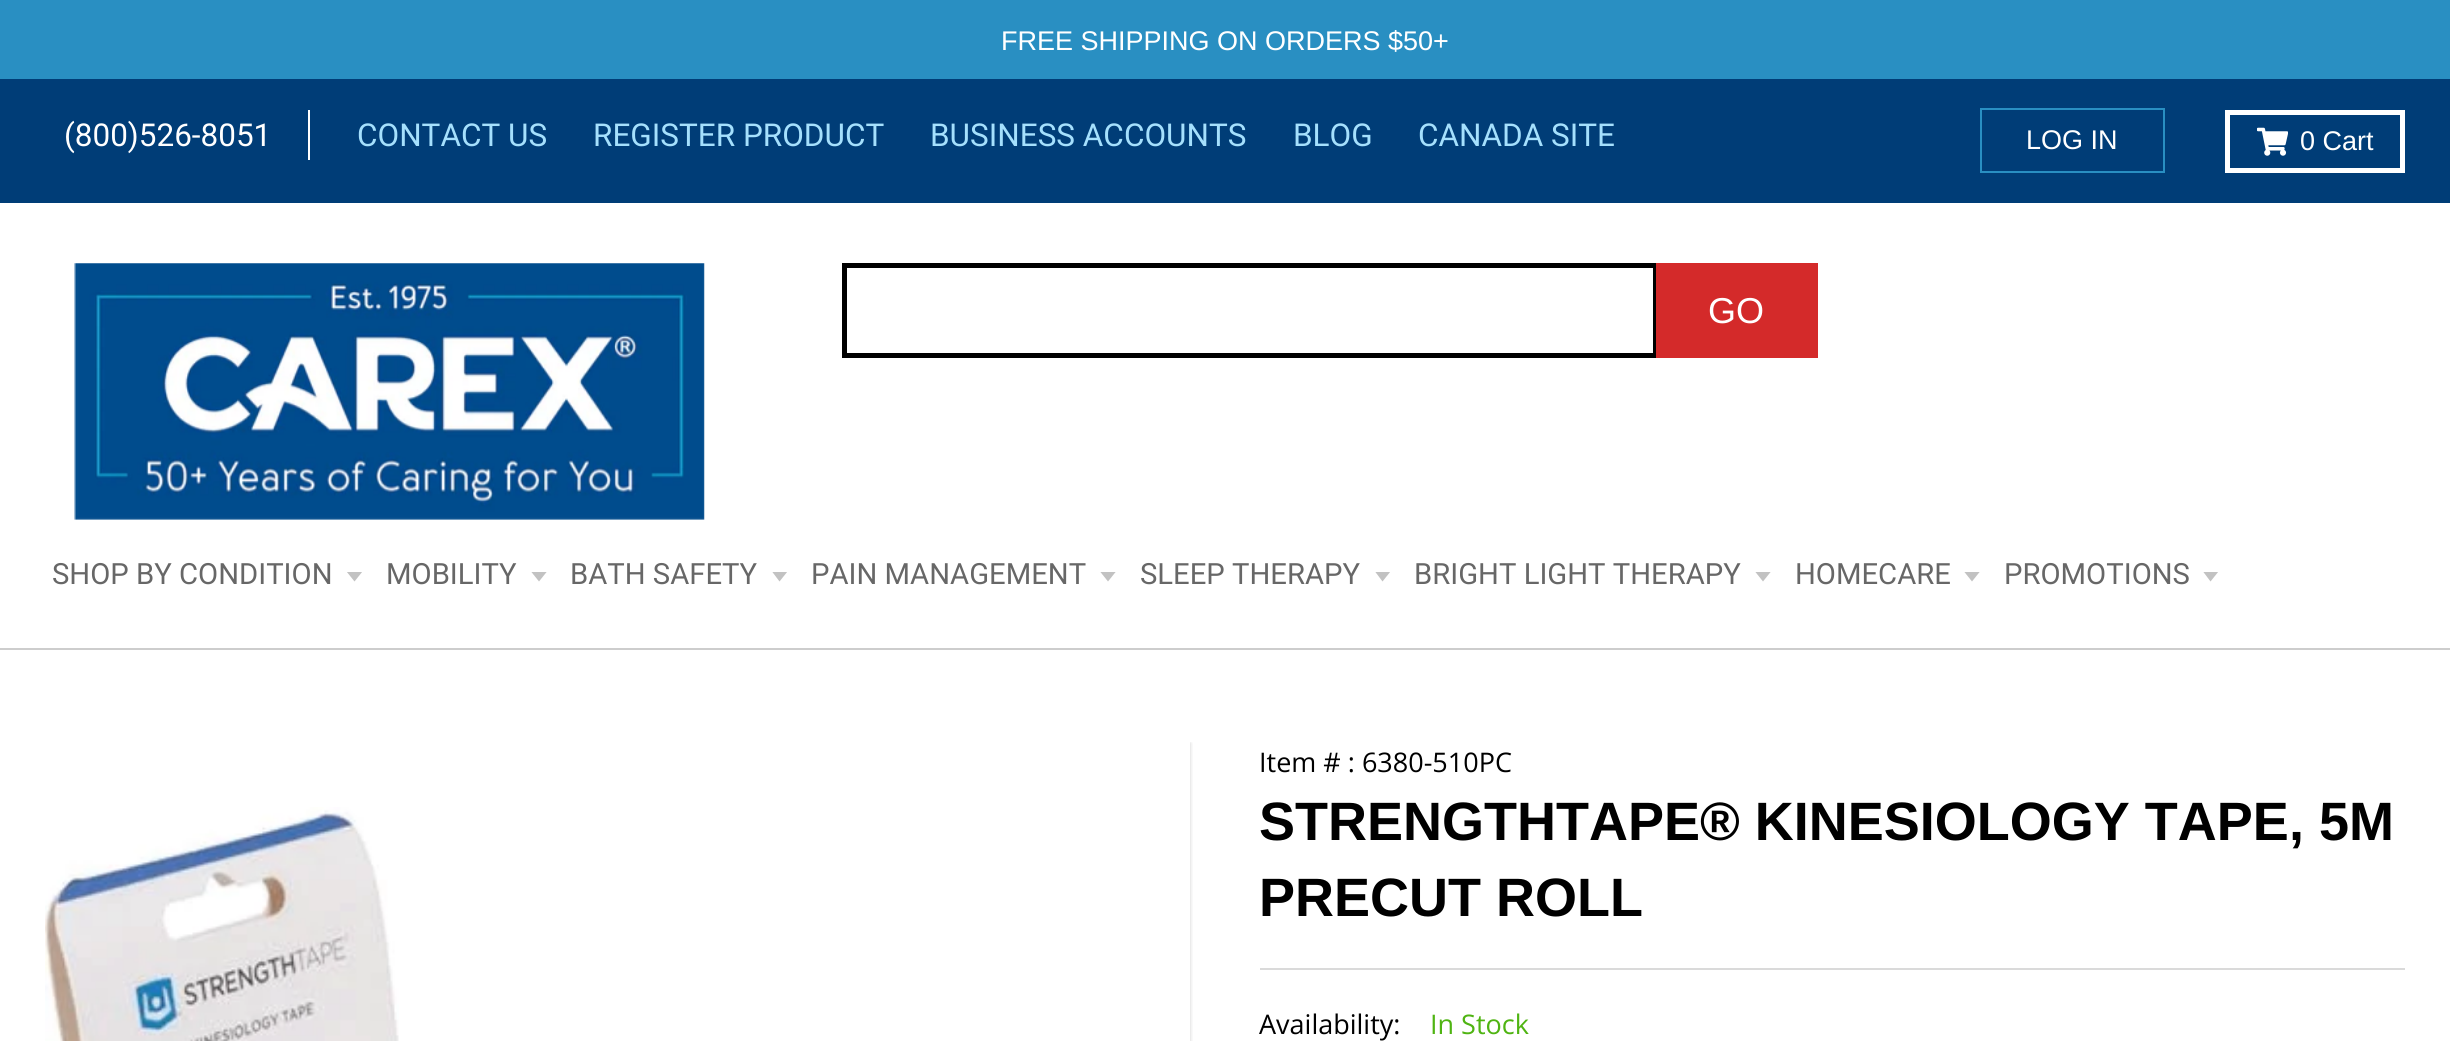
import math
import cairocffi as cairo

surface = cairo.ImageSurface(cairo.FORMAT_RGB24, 2450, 1041)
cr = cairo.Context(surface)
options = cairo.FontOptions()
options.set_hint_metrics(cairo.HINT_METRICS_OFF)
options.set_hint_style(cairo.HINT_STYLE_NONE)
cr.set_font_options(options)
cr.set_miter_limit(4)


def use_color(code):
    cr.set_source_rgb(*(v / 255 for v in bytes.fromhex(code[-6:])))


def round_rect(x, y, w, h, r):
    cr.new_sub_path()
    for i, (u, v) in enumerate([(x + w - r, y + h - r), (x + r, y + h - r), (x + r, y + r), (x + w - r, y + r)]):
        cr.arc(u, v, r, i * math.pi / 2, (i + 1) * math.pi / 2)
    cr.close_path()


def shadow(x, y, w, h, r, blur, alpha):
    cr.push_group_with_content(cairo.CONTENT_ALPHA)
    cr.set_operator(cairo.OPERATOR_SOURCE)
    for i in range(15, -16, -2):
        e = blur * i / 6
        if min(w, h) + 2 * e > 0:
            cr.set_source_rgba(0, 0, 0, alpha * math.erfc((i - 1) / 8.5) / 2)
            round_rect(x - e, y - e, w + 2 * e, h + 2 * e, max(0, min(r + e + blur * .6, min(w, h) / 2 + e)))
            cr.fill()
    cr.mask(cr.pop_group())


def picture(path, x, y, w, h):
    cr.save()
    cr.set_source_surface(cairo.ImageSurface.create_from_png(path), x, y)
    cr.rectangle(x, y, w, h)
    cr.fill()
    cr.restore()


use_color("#ffffff")
cr.paint()
use_color("#298fc2")
cr.rectangle(0, 0, 2450, 79)
cr.fill()
cr.select_font_face("Liberation Sans")
cr.set_font_size(27)
use_color("#ffffff")
cr.move_to(1001, 50)
cr.show_text("FREE SHIPPING ON ORDERS $50+")
use_color("#003d77")
cr.rectangle(0, 79, 2450, 124)
cr.fill()
use_color("#ffffff")
cr.rectangle(308, 110, 2, 50)
cr.fill()
cr.select_font_face("Roboto")
cr.set_font_size(31.5)
cr.move_to(64, 146)
cr.show_text("(800)526-8051")
use_color("#a5e0fd")
cr.move_to(357, 146)
cr.show_text("CONTACT US")
cr.move_to(593, 146)
cr.show_text("REGISTER PRODUCT")
cr.move_to(930, 146)
cr.show_text("BUSINESS ACCOUNTS")
cr.move_to(1293, 146)
cr.show_text("BLOG")
cr.move_to(1418, 146)
cr.show_text("CANADA SITE")
cr.rectangle(1981, 109, 183, 63)
use_color("#298fc2")
cr.stroke()
cr.select_font_face("Liberation Sans")
cr.set_font_size(27)
use_color("#ffffff")
cr.move_to(2026, 149)
cr.show_text("LOG IN")
cr.rectangle(2227.5, 112.5, 175, 58)
cr.set_line_width(5)
cr.stroke()
picture("img1.png", 2257, 127, 31, 29)
cr.move_to(2300, 150)
cr.show_text("0 Cart")
use_color("#cdcdcd")
cr.rectangle(0, 648, 2450, 2)
cr.fill()
picture("img2.png", 74, 263, 631, 257)
cr.rectangle(844.5, 265.5, 811, 90)
use_color("#000000")
cr.stroke()
use_color("#d42a2a")
cr.rectangle(1656, 263, 162, 95)
cr.fill()
cr.set_font_size(36)
use_color("#ffffff")
cr.move_to(1708, 323)
cr.show_text("GO")
cr.select_font_face("Roboto")
cr.set_font_size(29.25)
use_color("#676767")
cr.move_to(52, 584)
cr.show_text("SHOP BY CONDITION")
cr.save()
cr.rectangle(347, 572, 18, 11)
cr.clip()
use_color("#c2c2c2")
cr.new_path()
cr.move_to(346.5, 571.5)
cr.line_to(354.5, 581.5)
cr.line_to(362.5, 571.5)
cr.close_path()
cr.fill()
cr.restore()
cr.move_to(386, 584)
cr.show_text("MOBILITY")
cr.save()
cr.rectangle(531, 572, 18, 11)
cr.clip()
use_color("#c2c2c2")
cr.new_path()
cr.move_to(531, 571.5)
cr.line_to(539, 581.5)
cr.line_to(547, 571.5)
cr.close_path()
cr.fill()
cr.restore()
cr.move_to(570, 584)
cr.show_text("BATH SAFETY")
cr.save()
cr.rectangle(772, 572, 18, 11)
cr.clip()
use_color("#c2c2c2")
cr.new_path()
cr.move_to(772, 571.5)
cr.line_to(779.5, 581.5)
cr.line_to(787.5, 571.5)
cr.close_path()
cr.fill()
cr.restore()
cr.move_to(811, 584)
cr.show_text("PAIN MANAGEMENT")
cr.save()
cr.rectangle(1100, 572, 18, 11)
cr.clip()
use_color("#c2c2c2")
cr.new_path()
cr.move_to(1100, 571.5)
cr.line_to(1108, 581.5)
cr.line_to(1116, 571.5)
cr.close_path()
cr.fill()
cr.restore()
cr.move_to(1140, 584)
cr.show_text("SLEEP THERAPY")
cr.save()
cr.rectangle(1375, 572, 18, 11)
cr.clip()
use_color("#c2c2c2")
cr.new_path()
cr.move_to(1375, 571.5)
cr.line_to(1382.5, 581.5)
cr.line_to(1390.5, 571.5)
cr.close_path()
cr.fill()
cr.restore()
cr.move_to(1414, 584)
cr.show_text("BRIGHT LIGHT THERAPY")
cr.save()
cr.rectangle(1755, 572, 18, 11)
cr.clip()
use_color("#c2c2c2")
cr.new_path()
cr.move_to(1755, 571.5)
cr.line_to(1763, 581.5)
cr.line_to(1771, 571.5)
cr.close_path()
cr.fill()
cr.restore()
cr.move_to(1795, 584)
cr.show_text("HOMECARE")
cr.save()
cr.rectangle(1964, 572, 18, 11)
cr.clip()
use_color("#c2c2c2")
cr.new_path()
cr.move_to(1964, 571.5)
cr.line_to(1972, 581.5)
cr.line_to(1980, 571.5)
cr.close_path()
cr.fill()
cr.restore()
cr.move_to(2004, 584)
cr.show_text("PROMOTIONS")
cr.save()
cr.rectangle(2203, 572, 18, 11)
cr.clip()
use_color("#c2c2c2")
cr.new_path()
cr.move_to(2203, 571.5)
cr.line_to(2210.5, 581.5)
cr.line_to(2218.5, 571.5)
cr.close_path()
cr.fill()
cr.restore()
cr.save()
cr.rectangle(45, 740, 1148, 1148)
cr.clip()
cr.rectangle(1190, 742, 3, 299)
cr.clip()
use_color("#000000")
shadow(45, 743, 1145, 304, 0, 2, 0.2)
cr.restore()
picture("img3.png", 45, 807, 354, 234)
cr.select_font_face("Open Sans")
cr.set_font_size(27)
use_color("#000000")
cr.move_to(1259, 772)
cr.show_text("Item # : 6380-510PC")
use_color("#dadada")
cr.rectangle(1260, 968, 1145, 2)
cr.fill()
cr.select_font_face("Liberation Sans", cairo.FONT_SLANT_NORMAL, cairo.FONT_WEIGHT_BOLD)
cr.set_font_size(54)
use_color("#000000")
cr.move_to(1259, 840)
cr.show_text("STRENGTHTAPE® KINESIOLOGY TAPE, 5M")
cr.move_to(1259, 916)
cr.show_text("PRECUT ROLL")
cr.select_font_face("Open Sans")
cr.set_font_size(27)
cr.move_to(1259, 1034)
cr.show_text("Availability:")
use_color("#4fb412")
cr.move_to(1430, 1034)
cr.show_text("In Stock")
surface.write_to_png("result.png")
